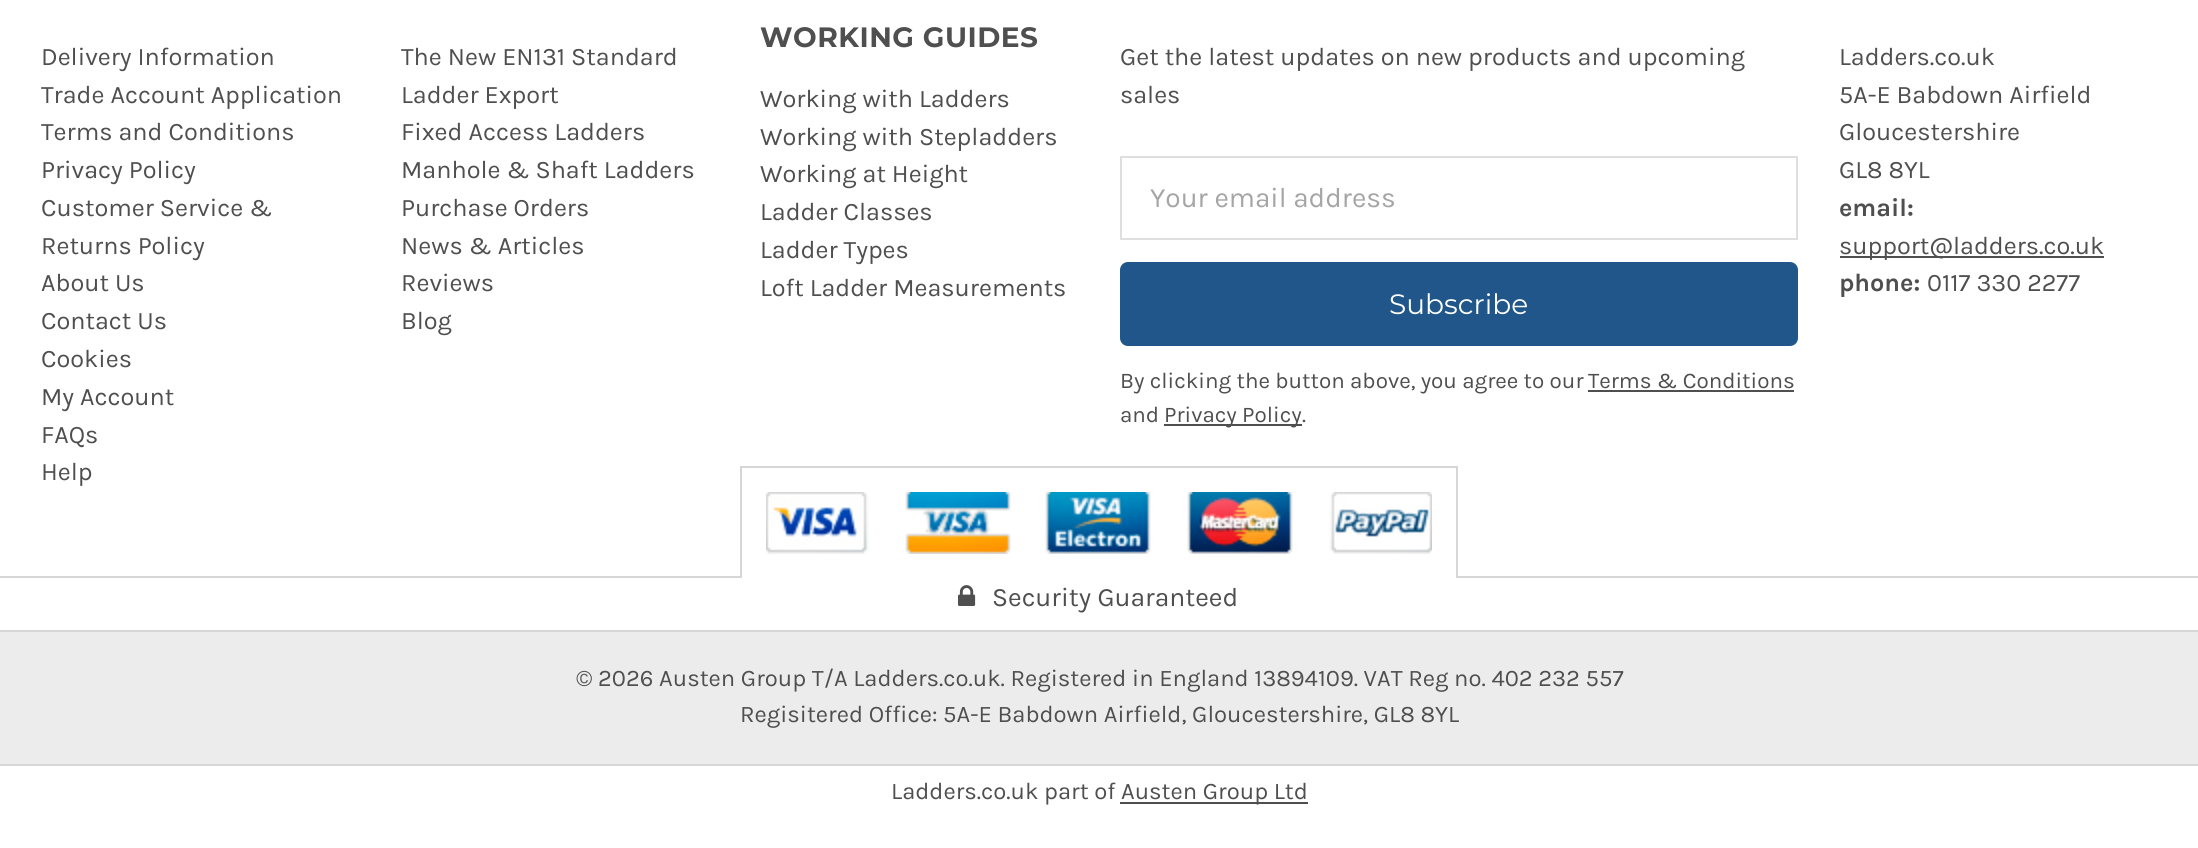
import math
import cairocffi as cairo

surface = cairo.ImageSurface(cairo.FORMAT_RGB24, 2198, 848)
cr = cairo.Context(surface)
options = cairo.FontOptions()
options.set_hint_metrics(cairo.HINT_METRICS_OFF)
options.set_hint_style(cairo.HINT_STYLE_NONE)
cr.set_font_options(options)
cr.set_miter_limit(4)


def use_color(code):
    cr.set_source_rgb(*(v / 255 for v in bytes.fromhex(code[-6:])))


def spaced_text(x, y, s, letter, word):
    cr.move_to(x, y)
    for ch in s:
        cr.show_text(ch)
        cr.rel_move_to(letter + word * (ch == ' '), 0)


def round_rect(x, y, w, h, r):
    cr.new_sub_path()
    for i, (u, v) in enumerate([(x + w - r, y + h - r), (x + r, y + h - r), (x + r, y + r), (x + w - r, y + r)]):
        cr.arc(u, v, r, i * math.pi / 2, (i + 1) * math.pi / 2)
    cr.close_path()


def picture(path, x, y, w, h):
    cr.save()
    cr.set_source_surface(cairo.ImageSurface.create_from_png(path), x, y)
    cr.rectangle(x, y, w, h)
    cr.fill()
    cr.restore()


use_color("#ffffff")
cr.paint()
cr.select_font_face("Karla")
cr.set_font_size(25.2)
use_color("#4f4f4f")
cr.move_to(41, 65)
cr.show_text("Delivery Information")
cr.move_to(41, 103)
cr.show_text("Trade Account Application")
cr.move_to(41, 140)
cr.show_text("Terms and Conditions")
cr.move_to(41, 178)
cr.show_text("Privacy Policy")
cr.move_to(41, 216)
cr.show_text("Customer Service &")
cr.move_to(41, 254)
cr.show_text("Returns Policy")
cr.move_to(41, 291)
cr.show_text("About Us")
cr.move_to(41, 329)
cr.show_text("Contact Us")
cr.move_to(41, 367)
cr.show_text("Cookies")
cr.move_to(41, 405)
cr.show_text("My Account")
cr.move_to(41, 443)
cr.show_text("FAQs")
cr.move_to(41, 480)
cr.show_text("Help")
cr.move_to(401, 65)
cr.show_text("The New EN131 Standard")
cr.move_to(401, 103)
cr.show_text("Ladder Export")
cr.move_to(401, 140)
cr.show_text("Fixed Access Ladders")
cr.move_to(401, 178)
cr.show_text("Manhole & Shaft Ladders")
cr.move_to(401, 216)
cr.show_text("Purchase Orders")
cr.move_to(401, 254)
cr.show_text("News & Articles")
cr.move_to(401, 291)
cr.show_text("Reviews")
cr.move_to(401, 329)
cr.show_text("Blog")
cr.select_font_face("Montserrat Thin")
cr.set_font_size(28)
spaced_text(760, 47, "WORKING GUIDES", 0.5, 0)
cr.select_font_face("Karla")
cr.set_font_size(25.2)
cr.move_to(760, 107)
cr.show_text("Working with Ladders")
cr.move_to(760, 145)
cr.show_text("Working with Stepladders")
cr.move_to(760, 182)
cr.show_text("Working at Height")
cr.move_to(760, 220)
cr.show_text("Ladder Classes")
cr.move_to(760, 258)
cr.show_text("Ladder Types")
cr.move_to(760, 296)
cr.show_text("Loft Ladder Measurements")
cr.move_to(1120, 65)
cr.show_text("Get the latest updates on new products and upcoming")
cr.move_to(1120, 103)
cr.show_text("sales")
cr.rectangle(1121, 157, 676, 82)
use_color("#dfdfdf")
cr.stroke()
cr.set_font_size(28)
use_color("#a5a5a5")
cr.move_to(1150, 207)
cr.show_text("Your email address")
use_color("#205689")
round_rect(1120, 262, 678, 84, 8)
cr.fill()
cr.select_font_face("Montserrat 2 Thin")
use_color("#ffffff")
cr.move_to(1389, 314)
cr.show_text("Subscribe")
cr.select_font_face("Karla")
cr.set_font_size(22.4)
use_color("#4f4f4f")
cr.move_to(1120, 388)
cr.show_text("By clicking the button above, you agree to our")
cr.move_to(1588, 388)
cr.show_text("Terms & Conditions")
cr.rectangle(1588, 390, 206, 2)
cr.fill()
cr.move_to(1120, 422)
cr.show_text("and")
cr.rectangle(1164, 424, 138, 2)
cr.fill()
cr.move_to(1164, 422)
cr.show_text("Privacy Policy")
cr.move_to(1302, 422)
cr.show_text(".")
cr.set_font_size(25.2)
cr.move_to(1839, 65)
cr.show_text("Ladders.co.uk")
cr.move_to(1839, 103)
cr.show_text("5A-E Babdown Airfield")
cr.move_to(1839, 140)
cr.show_text("Gloucestershire")
cr.move_to(1839, 178)
cr.show_text("GL8 8YL")
cr.select_font_face("Karla", cairo.FONT_SLANT_NORMAL, cairo.FONT_WEIGHT_BOLD)
cr.move_to(1839, 216)
cr.show_text("email:")
cr.rectangle(1840, 256, 264, 2)
cr.fill()
cr.select_font_face("Karla")
cr.move_to(1839, 254)
cr.show_text("support@ladders.co.uk")
cr.select_font_face("Karla", cairo.FONT_SLANT_NORMAL, cairo.FONT_WEIGHT_BOLD)
cr.move_to(1839, 291)
cr.show_text("phone:")
cr.select_font_face("Karla")
cr.move_to(1927, 291)
cr.show_text("0117 330 2277")
use_color("#d7d6d6")
cr.rectangle(0, 576, 2198, 2)
cr.fill()
use_color("#ffffff")
cr.rectangle(742, 576, 714, 2)
cr.fill()
use_color("#d7d6d6")
cr.rectangle(740, 466, 718, 2)
cr.fill()
cr.rectangle(1456, 466, 2, 112)
cr.fill()
cr.rectangle(740, 466, 2, 112)
cr.fill()
picture("img1.png", 766, 492, 666, 62)
picture("img2.png", 958, 585, 18, 21)
cr.set_font_size(26.5)
use_color("#4f4f4f")
cr.move_to(992, 606)
cr.show_text("Security Guaranteed")
use_color("#ececec")
cr.rectangle(0, 632, 2198, 132)
cr.fill()
use_color("#d7d6d6")
cr.rectangle(0, 630, 2198, 2)
cr.fill()
cr.rectangle(0, 764, 2198, 2)
cr.fill()
cr.set_font_size(23.8)
use_color("#4f4f4f")
cr.move_to(576, 686)
cr.show_text("© 2026 Austen Group T/A Ladders.co.uk. Registered in England 13894109. VAT Reg no. 402 232 557")
cr.move_to(740, 722)
cr.show_text("Regisitered Office: 5A-E Babdown Airfield, Gloucestershire, GL8 8YL")
cr.move_to(891, 799)
cr.show_text("Ladders.co.uk part of")
cr.rectangle(1120, 802, 188, 2)
cr.fill()
cr.move_to(1121, 799)
cr.show_text("Austen Group Ltd")
surface.write_to_png("result.png")
